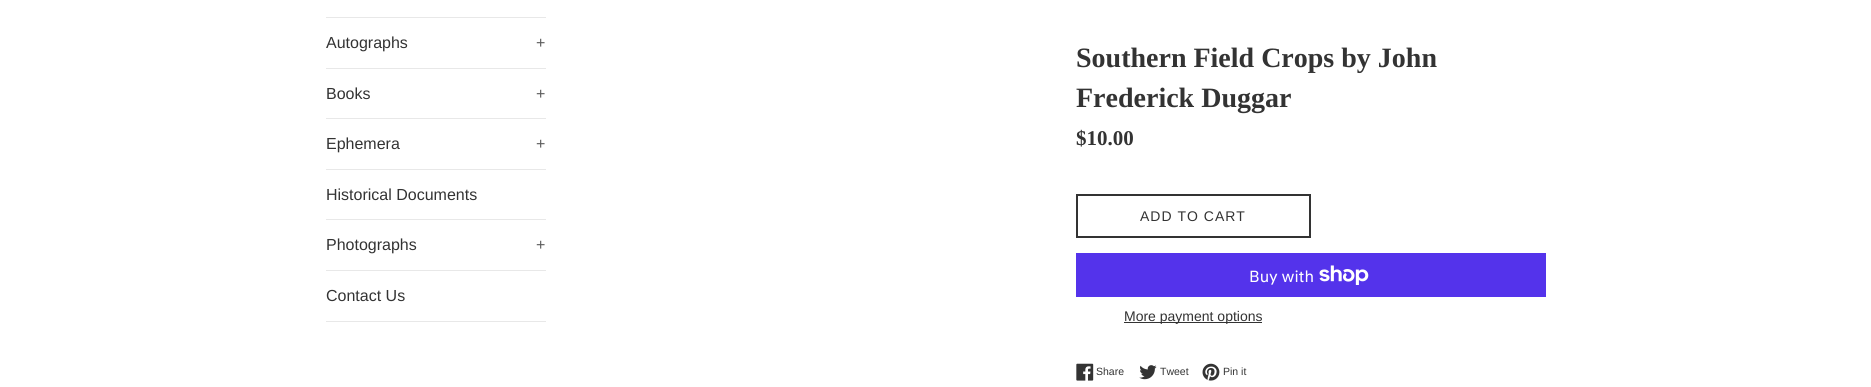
import math
import cairocffi as cairo

surface = cairo.ImageSurface(cairo.FORMAT_RGB24, 1871, 387)
cr = cairo.Context(surface)
options = cairo.FontOptions()
options.set_hint_metrics(cairo.HINT_METRICS_OFF)
options.set_hint_style(cairo.HINT_STYLE_NONE)
cr.set_font_options(options)
cr.set_miter_limit(4)


def use_color(code):
    cr.set_source_rgb(*(v / 255 for v in bytes.fromhex(code[-6:])))


def spaced_text(x, y, s, letter, word):
    cr.move_to(x, y)
    for ch in s:
        cr.show_text(ch)
        cr.rel_move_to(letter + word * (ch == ' '), 0)


def picture(path, x, y, w, h):
    cr.save()
    cr.set_source_surface(cairo.ImageSurface.create_from_png(path), x, y)
    cr.rectangle(x, y, w, h)
    cr.fill()
    cr.restore()


use_color("#ffffff")
cr.paint()
use_color("#e8e8e8")
cr.rectangle(326, 17, 220, 1)
cr.fill()
cr.rectangle(326, 68, 220, 1)
cr.fill()
cr.select_font_face("Liberation Sans")
cr.set_font_size(16)
use_color("#333333")
cr.move_to(326, 48)
cr.show_text("Autographs")
use_color("#5c5c5c")
cr.move_to(536, 48)
cr.show_text("+")
use_color("#e8e8e8")
cr.rectangle(326, 118, 220, 1)
cr.fill()
use_color("#333333")
cr.move_to(326, 99)
cr.show_text("Books")
use_color("#5c5c5c")
cr.move_to(536, 99)
cr.show_text("+")
use_color("#e8e8e8")
cr.rectangle(326, 169, 220, 1)
cr.fill()
use_color("#333333")
cr.move_to(326, 149)
cr.show_text("Ephemera")
use_color("#5c5c5c")
cr.move_to(536, 149)
cr.show_text("+")
use_color("#e8e8e8")
cr.rectangle(326, 219, 220, 1)
cr.fill()
use_color("#333333")
cr.move_to(326, 200)
cr.show_text("Historical Documents")
use_color("#e8e8e8")
cr.rectangle(326, 270, 220, 1)
cr.fill()
use_color("#333333")
cr.move_to(326, 250)
cr.show_text("Photographs")
use_color("#5c5c5c")
cr.move_to(536, 250)
cr.show_text("+")
use_color("#e8e8e8")
cr.rectangle(326, 321, 220, 1)
cr.fill()
use_color("#333333")
cr.move_to(326, 301)
cr.show_text("Contact Us")
cr.select_font_face("Liberation Serif", cairo.FONT_SLANT_NORMAL, cairo.FONT_WEIGHT_BOLD)
cr.set_font_size(28)
cr.move_to(1076, 67)
cr.show_text("Southern Field Crops by John")
cr.move_to(1076, 107)
cr.show_text("Frederick Duggar")
cr.set_font_size(21)
cr.move_to(1076, 145)
cr.show_text("$10.00")
cr.rectangle(1077, 195, 233, 42)
cr.stroke()
cr.select_font_face("Liberation Sans")
cr.set_font_size(14)
spaced_text(1140, 221, "ADD TO CART", 1, 0)
use_color("#5433eb")
cr.rectangle(1076, 253, 470, 44)
cr.fill()
cr.select_font_face("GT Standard")
cr.set_font_size(16)
use_color("#ffffff")
cr.move_to(1249, 282)
cr.show_text("Buy with")
picture("img1.png", 1319, 265, 50, 20)
use_color("#333333")
cr.rectangle(1124, 322, 138, 1)
cr.fill()
cr.select_font_face("Liberation Sans")
cr.set_font_size(14)
cr.move_to(1124, 321)
cr.show_text("More payment options")
picture("img2.png", 1076, 363, 18, 18)
cr.set_font_size(10.5)
cr.move_to(1096, 375)
cr.show_text("Share")
picture("img3.png", 1139, 365, 18, 15)
cr.move_to(1160, 375)
cr.show_text("Tweet")
picture("img4.png", 1202, 363, 18, 18)
cr.move_to(1223, 375)
cr.show_text("Pin it")
surface.write_to_png("result.png")
